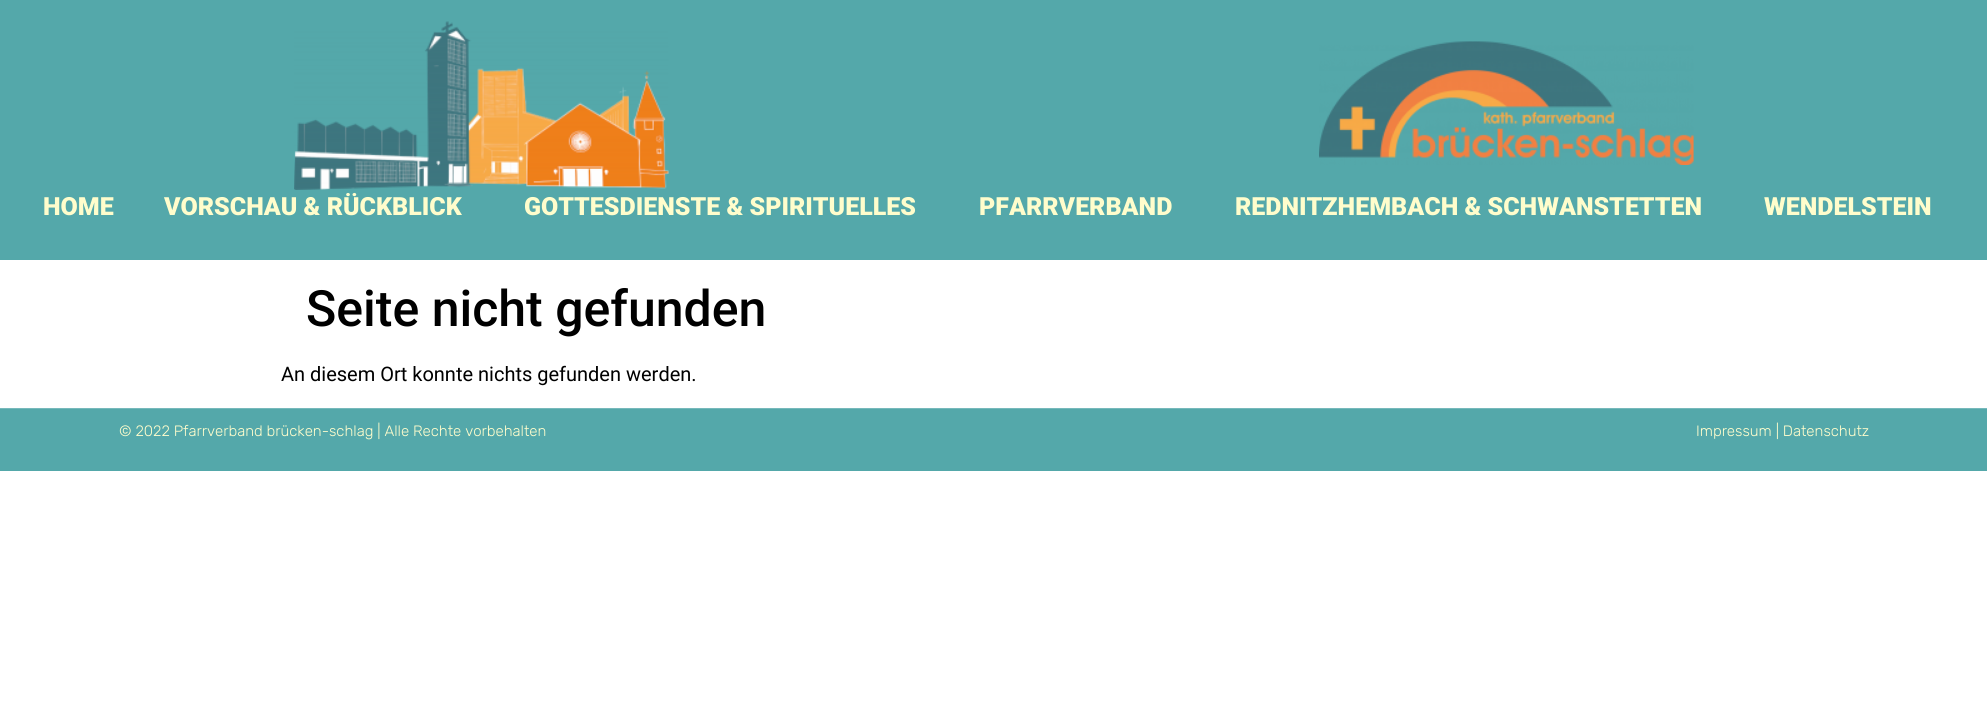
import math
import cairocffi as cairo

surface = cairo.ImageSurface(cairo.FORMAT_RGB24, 1987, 701)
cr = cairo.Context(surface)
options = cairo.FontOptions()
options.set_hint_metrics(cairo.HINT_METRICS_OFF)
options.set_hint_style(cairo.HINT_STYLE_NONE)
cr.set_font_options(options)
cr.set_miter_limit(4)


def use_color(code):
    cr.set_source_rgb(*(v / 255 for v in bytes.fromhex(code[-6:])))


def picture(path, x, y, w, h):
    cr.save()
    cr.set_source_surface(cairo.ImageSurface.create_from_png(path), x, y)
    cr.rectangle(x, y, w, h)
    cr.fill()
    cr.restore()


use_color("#ffffff")
cr.paint()
use_color("#54a8aa")
cr.rectangle(0, 0, 1987, 260)
cr.fill()
picture("img1.png", 294, 21, 375, 169)
picture("img2.png", 1319, 41, 375, 124)
cr.select_font_face("Roboto Black")
cr.set_font_size(25)
use_color("#fffdcc")
cr.move_to(43, 215)
cr.show_text("HOME")
cr.move_to(164, 215)
cr.show_text("VORSCHAU & RÜCKBLICK")
cr.move_to(524, 215)
cr.show_text("GOTTESDIENSTE & SPIRITUELLES")
cr.move_to(979, 215)
cr.show_text("PFARRVERBAND")
cr.move_to(1235, 215)
cr.show_text("REDNITZHEMBACH & SCHWANSTETTEN")
cr.move_to(1764, 215)
cr.show_text("WENDELSTEIN")
cr.select_font_face("Roboto Medium")
cr.set_font_size(50)
use_color("#000000")
cr.move_to(306, 326)
cr.show_text("Seite nicht gefunden")
cr.select_font_face("Roboto")
cr.set_font_size(20)
cr.move_to(281, 381)
cr.show_text("An diesem Ort konnte nichts gefunden werden.")
use_color("#54a8aa")
cr.rectangle(0, 409, 1987, 62)
cr.fill()
use_color("#76b9bb")
cr.rectangle(0, 408, 1987, 1)
cr.fill()
cr.select_font_face("Rubik Light")
cr.set_font_size(15)
use_color("#fffdcc")
cr.move_to(119, 436)
cr.show_text("© 2022 Pfarrverband brücken-schlag | Alle Rechte vorbehalten")
cr.move_to(1696, 436)
cr.show_text("Impressum | Datenschutz")
surface.write_to_png("result.png")
